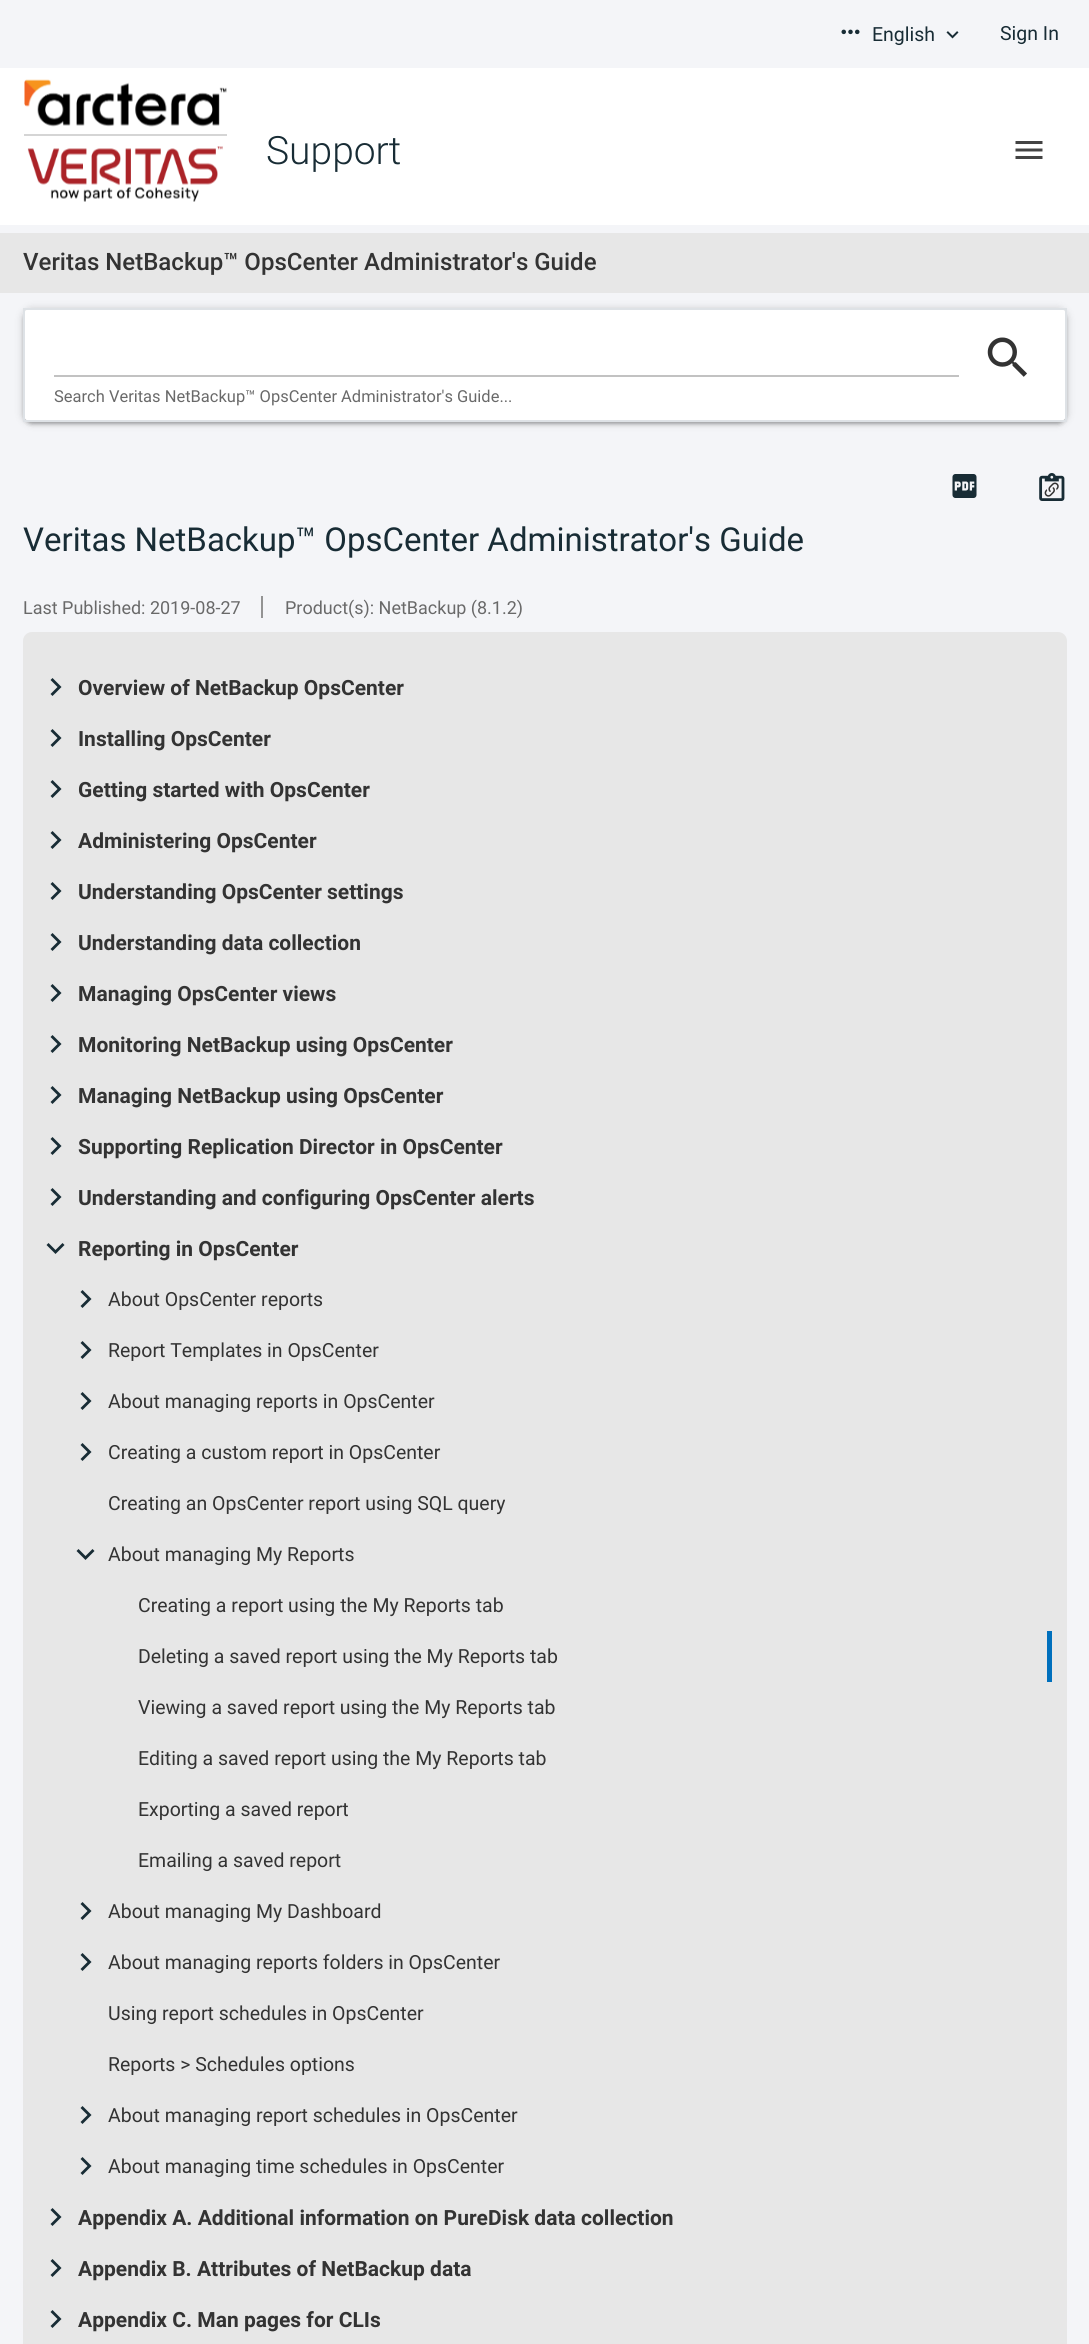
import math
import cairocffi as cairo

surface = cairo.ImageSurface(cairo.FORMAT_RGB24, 1089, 2344)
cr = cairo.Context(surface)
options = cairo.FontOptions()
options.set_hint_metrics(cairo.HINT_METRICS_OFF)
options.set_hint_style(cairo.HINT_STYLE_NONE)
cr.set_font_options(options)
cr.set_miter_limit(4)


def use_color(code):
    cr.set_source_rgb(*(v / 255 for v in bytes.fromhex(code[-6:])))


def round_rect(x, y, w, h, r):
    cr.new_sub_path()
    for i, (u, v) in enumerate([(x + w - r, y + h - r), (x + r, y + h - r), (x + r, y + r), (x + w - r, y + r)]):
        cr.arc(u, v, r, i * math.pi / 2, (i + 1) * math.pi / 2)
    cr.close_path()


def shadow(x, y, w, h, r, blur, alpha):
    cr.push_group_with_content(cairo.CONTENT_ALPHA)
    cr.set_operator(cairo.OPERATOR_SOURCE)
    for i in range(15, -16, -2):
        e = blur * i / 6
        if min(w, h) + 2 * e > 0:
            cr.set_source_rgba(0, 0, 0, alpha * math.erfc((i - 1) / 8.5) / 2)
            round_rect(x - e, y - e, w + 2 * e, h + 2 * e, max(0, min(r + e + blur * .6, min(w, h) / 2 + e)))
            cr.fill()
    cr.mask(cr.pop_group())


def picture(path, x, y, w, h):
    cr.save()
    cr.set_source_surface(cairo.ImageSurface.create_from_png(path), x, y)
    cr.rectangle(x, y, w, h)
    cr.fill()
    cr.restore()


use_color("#f4f5f8")
cr.paint()
picture("img1.png", 841, 29, 19, 6)
cr.select_font_face("Roboto")
cr.set_font_size(19.5)
use_color("#182c35")
cr.move_to(872, 41)
cr.show_text("English")
picture("img2.png", 946, 31, 13, 8)
cr.move_to(1000, 40)
cr.show_text("Sign In")
use_color("#ffffff")
cr.rectangle(0, 68, 1089, 157)
cr.fill()
picture("img3.png", 24, 79, 203, 48)
use_color("#d5d5d5")
cr.rectangle(24, 134, 203, 2)
cr.fill()
picture("img4.png", 27, 146, 196, 56)
cr.select_font_face("Roboto Light")
cr.set_font_size(39)
use_color("#182c35")
cr.move_to(266, 164)
cr.show_text("Support")
picture("img5.png", 1015, 141, 28, 18)
use_color("#e7e7e7")
cr.rectangle(0, 233, 1089, 60)
cr.fill()
cr.select_font_face("Roboto Medium")
cr.set_font_size(24)
use_color("#333333")
cr.move_to(23, 270)
cr.show_text("Veritas NetBackup™ OpsCenter Administrator's Guide")
use_color("#000000")
shadow(26, 315, 1038, 108, 6, 1, 0.12)
shadow(23, 311, 1044, 114, 9, 1.5, 0.14)
shadow(23, 309, 1044, 114, 9, 4, 0.2)
use_color("#ffffff")
round_rect(23, 308, 1044, 114, 9)
cr.fill()
cr.rectangle(24, 309, 1042, 112)
use_color("#dee2e6")
cr.stroke()
use_color("#c2c2c2")
cr.rectangle(54, 375, 905, 2)
cr.fill()
picture("img6.png", 987, 337, 40, 40)
cr.select_font_face("Roboto")
cr.set_font_size(16.5)
use_color("#696969")
cr.move_to(54, 402)
cr.show_text("Search Veritas NetBackup™ OpsCenter Administrator's Guide...")
picture("img7.png", 952, 474, 25, 24)
picture("img8.png", 1039, 473, 26, 28)
picture("img9.png", 1044, 482, 15, 15)
cr.set_font_size(33)
use_color("#182c35")
cr.move_to(23, 551)
cr.show_text("Veritas NetBackup™ OpsCenter Administrator's Guide")
cr.set_font_size(18)
use_color("#696969")
cr.move_to(23, 614)
cr.show_text("Last Published: 2019-08-27")
use_color("#939393")
cr.rectangle(261, 596, 2, 22)
cr.fill()
use_color("#696969")
cr.move_to(285, 614)
cr.show_text("Product(s): NetBackup (8.1.2)")
use_color("#e7e7e7")
round_rect(23, 632, 1044, 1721, 9)
cr.fill()
use_color("#182c35")
cr.new_path()
cr.move_to(50.5, 694)
cr.line_to(57.5, 687)
cr.line_to(50.5, 680)
cr.line_to(52.5, 678)
cr.line_to(61.5, 687)
cr.line_to(52.5, 696)
cr.close_path()
cr.fill()
cr.select_font_face("Roboto", cairo.FONT_SLANT_NORMAL, cairo.FONT_WEIGHT_BOLD)
cr.set_font_size(21)
use_color("#333333")
cr.move_to(78, 695)
cr.show_text("Overview of NetBackup OpsCenter")
use_color("#182c35")
cr.new_path()
cr.move_to(50.5, 745)
cr.line_to(57.5, 738)
cr.line_to(50.5, 731)
cr.line_to(52.5, 729)
cr.line_to(61.5, 738)
cr.line_to(52.5, 747)
cr.close_path()
cr.fill()
use_color("#333333")
cr.move_to(78, 746)
cr.show_text("Installing OpsCenter")
use_color("#182c35")
cr.new_path()
cr.move_to(50.5, 796)
cr.line_to(57.5, 789)
cr.line_to(50.5, 782)
cr.line_to(52.5, 780)
cr.line_to(61.5, 789)
cr.line_to(52.5, 798)
cr.close_path()
cr.fill()
use_color("#333333")
cr.move_to(78, 797)
cr.show_text("Getting started with OpsCenter")
use_color("#182c35")
cr.new_path()
cr.move_to(50.5, 847)
cr.line_to(57.5, 840)
cr.line_to(50.5, 833)
cr.line_to(52.5, 831)
cr.line_to(61.5, 840)
cr.line_to(52.5, 849)
cr.close_path()
cr.fill()
use_color("#333333")
cr.move_to(78, 848)
cr.show_text("Administering OpsCenter")
use_color("#182c35")
cr.new_path()
cr.move_to(50.5, 898)
cr.line_to(57.5, 891)
cr.line_to(50.5, 884)
cr.line_to(52.5, 882)
cr.line_to(61.5, 891)
cr.line_to(52.5, 900)
cr.close_path()
cr.fill()
use_color("#333333")
cr.move_to(78, 899)
cr.show_text("Understanding OpsCenter settings")
use_color("#182c35")
cr.new_path()
cr.move_to(50.5, 949)
cr.line_to(57.5, 942)
cr.line_to(50.5, 935)
cr.line_to(52.5, 933)
cr.line_to(61.5, 942)
cr.line_to(52.5, 951)
cr.close_path()
cr.fill()
use_color("#333333")
cr.move_to(78, 950)
cr.show_text("Understanding data collection")
use_color("#182c35")
cr.new_path()
cr.move_to(50.5, 1000)
cr.line_to(57.5, 993)
cr.line_to(50.5, 986)
cr.line_to(52.5, 984)
cr.line_to(61.5, 993)
cr.line_to(52.5, 1002)
cr.close_path()
cr.fill()
use_color("#333333")
cr.move_to(78, 1001)
cr.show_text("Managing OpsCenter views")
use_color("#182c35")
cr.new_path()
cr.move_to(50.5, 1051)
cr.line_to(57.5, 1044)
cr.line_to(50.5, 1037)
cr.line_to(52.5, 1035)
cr.line_to(61.5, 1044)
cr.line_to(52.5, 1053)
cr.close_path()
cr.fill()
use_color("#333333")
cr.move_to(78, 1052)
cr.show_text("Monitoring NetBackup using OpsCenter")
use_color("#182c35")
cr.new_path()
cr.move_to(50.5, 1102)
cr.line_to(57.5, 1095)
cr.line_to(50.5, 1088)
cr.line_to(52.5, 1086)
cr.line_to(61.5, 1095)
cr.line_to(52.5, 1104)
cr.close_path()
cr.fill()
use_color("#333333")
cr.move_to(78, 1103)
cr.show_text("Managing NetBackup using OpsCenter")
use_color("#182c35")
cr.new_path()
cr.move_to(50.5, 1153)
cr.line_to(57.5, 1146)
cr.line_to(50.5, 1139)
cr.line_to(52.5, 1137)
cr.line_to(61.5, 1146)
cr.line_to(52.5, 1155)
cr.close_path()
cr.fill()
use_color("#333333")
cr.move_to(78, 1154)
cr.show_text("Supporting Replication Director in OpsCenter")
use_color("#182c35")
cr.new_path()
cr.move_to(50.5, 1204)
cr.line_to(57.5, 1197)
cr.line_to(50.5, 1190)
cr.line_to(52.5, 1188)
cr.line_to(61.5, 1197)
cr.line_to(52.5, 1206)
cr.close_path()
cr.fill()
use_color("#333333")
cr.move_to(78, 1205)
cr.show_text("Understanding and configuring OpsCenter alerts")
use_color("#182c35")
cr.new_path()
cr.move_to(48.5, 1243)
cr.line_to(55.5, 1250)
cr.line_to(62.5, 1243)
cr.line_to(64.5, 1245)
cr.line_to(55.5, 1254)
cr.line_to(46.5, 1245)
cr.close_path()
cr.fill()
use_color("#333333")
cr.move_to(78, 1256)
cr.show_text("Reporting in OpsCenter")
use_color("#182c35")
cr.new_path()
cr.move_to(80.5, 1306)
cr.line_to(87.5, 1299)
cr.line_to(80.5, 1292)
cr.line_to(82.5, 1290)
cr.line_to(91.5, 1299)
cr.line_to(82.5, 1308)
cr.close_path()
cr.fill()
cr.select_font_face("Roboto")
cr.set_font_size(19.5)
use_color("#333333")
cr.move_to(108, 1306)
cr.show_text("About OpsCenter reports")
use_color("#182c35")
cr.new_path()
cr.move_to(80.5, 1357)
cr.line_to(87.5, 1350)
cr.line_to(80.5, 1343)
cr.line_to(82.5, 1341)
cr.line_to(91.5, 1350)
cr.line_to(82.5, 1359)
cr.close_path()
cr.fill()
use_color("#333333")
cr.move_to(108, 1357)
cr.show_text("Report Templates in OpsCenter")
use_color("#182c35")
cr.new_path()
cr.move_to(80.5, 1408)
cr.line_to(87.5, 1401)
cr.line_to(80.5, 1394)
cr.line_to(82.5, 1392)
cr.line_to(91.5, 1401)
cr.line_to(82.5, 1410)
cr.close_path()
cr.fill()
use_color("#333333")
cr.move_to(108, 1408)
cr.show_text("About managing reports in OpsCenter")
use_color("#182c35")
cr.new_path()
cr.move_to(80.5, 1459)
cr.line_to(87.5, 1452)
cr.line_to(80.5, 1445)
cr.line_to(82.5, 1443)
cr.line_to(91.5, 1452)
cr.line_to(82.5, 1461)
cr.close_path()
cr.fill()
use_color("#333333")
cr.move_to(108, 1459)
cr.show_text("Creating a custom report in OpsCenter")
cr.move_to(108, 1510)
cr.show_text("Creating an OpsCenter report using SQL query")
use_color("#182c35")
cr.new_path()
cr.move_to(78.5, 1549)
cr.line_to(85.5, 1556)
cr.line_to(92.5, 1549)
cr.line_to(94.5, 1551)
cr.line_to(85.5, 1560)
cr.line_to(76.5, 1551)
cr.close_path()
cr.fill()
use_color("#333333")
cr.move_to(108, 1561)
cr.show_text("About managing My Reports")
cr.move_to(138, 1612)
cr.show_text("Creating a report using the My Reports tab")
use_color("#0070bd")
cr.rectangle(1047, 1631, 5, 51)
cr.fill()
use_color("#333333")
cr.move_to(138, 1663)
cr.show_text("Deleting a saved report using the My Reports tab")
cr.move_to(138, 1714)
cr.show_text("Viewing a saved report using the My Reports tab")
cr.move_to(138, 1765)
cr.show_text("Editing a saved report using the My Reports tab")
cr.move_to(138, 1816)
cr.show_text("Exporting a saved report")
cr.move_to(138, 1867)
cr.show_text("Emailing a saved report")
use_color("#182c35")
cr.new_path()
cr.move_to(80.5, 1918)
cr.line_to(87.5, 1911)
cr.line_to(80.5, 1904)
cr.line_to(82.5, 1902)
cr.line_to(91.5, 1911)
cr.line_to(82.5, 1920)
cr.close_path()
cr.fill()
use_color("#333333")
cr.move_to(108, 1918)
cr.show_text("About managing My Dashboard")
use_color("#182c35")
cr.new_path()
cr.move_to(80.5, 1969)
cr.line_to(87.5, 1962)
cr.line_to(80.5, 1955)
cr.line_to(82.5, 1953)
cr.line_to(91.5, 1962)
cr.line_to(82.5, 1971)
cr.close_path()
cr.fill()
use_color("#333333")
cr.move_to(108, 1969)
cr.show_text("About managing reports folders in OpsCenter")
cr.move_to(108, 2020)
cr.show_text("Using report schedules in OpsCenter")
cr.move_to(108, 2071)
cr.show_text("Reports > Schedules options")
use_color("#182c35")
cr.new_path()
cr.move_to(80.5, 2122)
cr.line_to(87.5, 2115)
cr.line_to(80.5, 2108)
cr.line_to(82.5, 2106)
cr.line_to(91.5, 2115)
cr.line_to(82.5, 2124)
cr.close_path()
cr.fill()
use_color("#333333")
cr.move_to(108, 2122)
cr.show_text("About managing report schedules in OpsCenter")
use_color("#182c35")
cr.new_path()
cr.move_to(80.5, 2173)
cr.line_to(87.5, 2166)
cr.line_to(80.5, 2159)
cr.line_to(82.5, 2157)
cr.line_to(91.5, 2166)
cr.line_to(82.5, 2175)
cr.close_path()
cr.fill()
use_color("#333333")
cr.move_to(108, 2173)
cr.show_text("About managing time schedules in OpsCenter")
use_color("#182c35")
cr.new_path()
cr.move_to(50.5, 2224)
cr.line_to(57.5, 2217)
cr.line_to(50.5, 2210)
cr.line_to(52.5, 2208)
cr.line_to(61.5, 2217)
cr.line_to(52.5, 2226)
cr.close_path()
cr.fill()
cr.select_font_face("Roboto", cairo.FONT_SLANT_NORMAL, cairo.FONT_WEIGHT_BOLD)
cr.set_font_size(21)
use_color("#333333")
cr.move_to(78, 2225)
cr.show_text("Appendix A. Additional information on PureDisk data collection")
use_color("#182c35")
cr.new_path()
cr.move_to(50.5, 2275)
cr.line_to(57.5, 2268)
cr.line_to(50.5, 2261)
cr.line_to(52.5, 2259)
cr.line_to(61.5, 2268)
cr.line_to(52.5, 2277)
cr.close_path()
cr.fill()
use_color("#333333")
cr.move_to(78, 2276)
cr.show_text("Appendix B. Attributes of NetBackup data")
use_color("#182c35")
cr.new_path()
cr.move_to(50.5, 2326)
cr.line_to(57.5, 2319)
cr.line_to(50.5, 2312)
cr.line_to(52.5, 2310)
cr.line_to(61.5, 2319)
cr.line_to(52.5, 2328)
cr.close_path()
cr.fill()
use_color("#333333")
cr.move_to(78, 2327)
cr.show_text("Appendix C. Man pages for CLIs")
surface.write_to_png("result.png")
